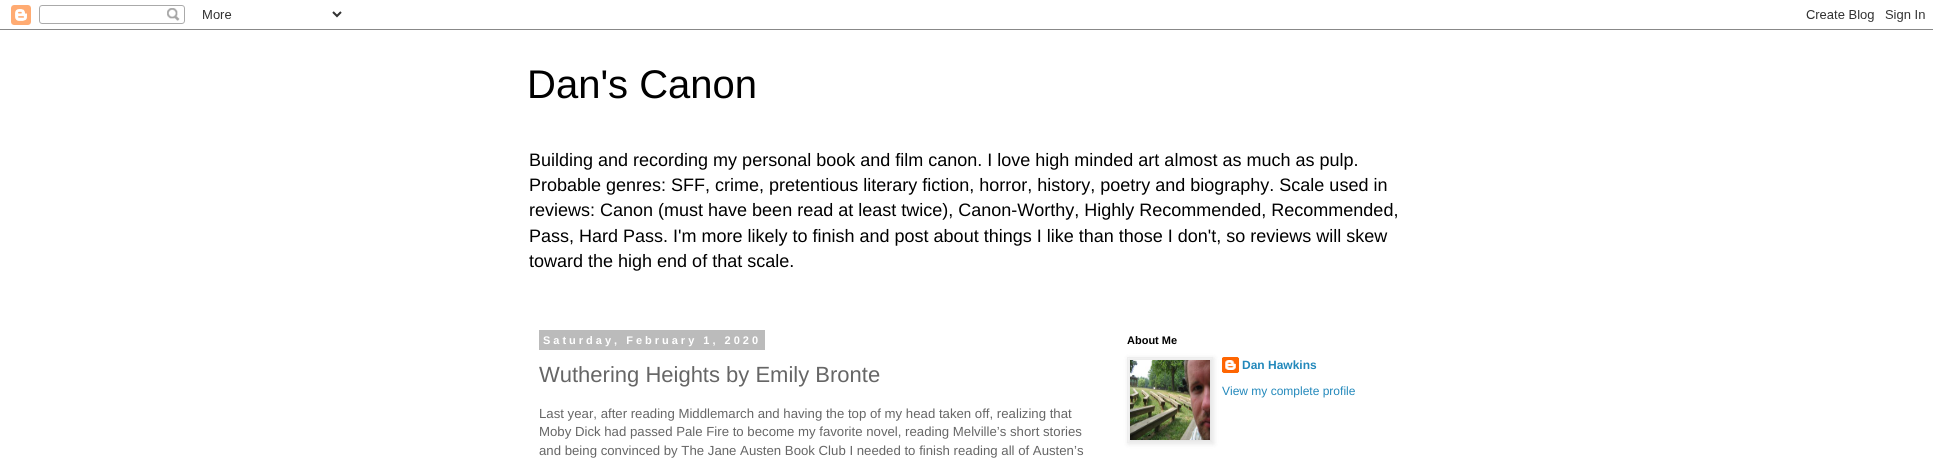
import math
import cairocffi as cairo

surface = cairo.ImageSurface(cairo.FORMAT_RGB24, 1933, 463)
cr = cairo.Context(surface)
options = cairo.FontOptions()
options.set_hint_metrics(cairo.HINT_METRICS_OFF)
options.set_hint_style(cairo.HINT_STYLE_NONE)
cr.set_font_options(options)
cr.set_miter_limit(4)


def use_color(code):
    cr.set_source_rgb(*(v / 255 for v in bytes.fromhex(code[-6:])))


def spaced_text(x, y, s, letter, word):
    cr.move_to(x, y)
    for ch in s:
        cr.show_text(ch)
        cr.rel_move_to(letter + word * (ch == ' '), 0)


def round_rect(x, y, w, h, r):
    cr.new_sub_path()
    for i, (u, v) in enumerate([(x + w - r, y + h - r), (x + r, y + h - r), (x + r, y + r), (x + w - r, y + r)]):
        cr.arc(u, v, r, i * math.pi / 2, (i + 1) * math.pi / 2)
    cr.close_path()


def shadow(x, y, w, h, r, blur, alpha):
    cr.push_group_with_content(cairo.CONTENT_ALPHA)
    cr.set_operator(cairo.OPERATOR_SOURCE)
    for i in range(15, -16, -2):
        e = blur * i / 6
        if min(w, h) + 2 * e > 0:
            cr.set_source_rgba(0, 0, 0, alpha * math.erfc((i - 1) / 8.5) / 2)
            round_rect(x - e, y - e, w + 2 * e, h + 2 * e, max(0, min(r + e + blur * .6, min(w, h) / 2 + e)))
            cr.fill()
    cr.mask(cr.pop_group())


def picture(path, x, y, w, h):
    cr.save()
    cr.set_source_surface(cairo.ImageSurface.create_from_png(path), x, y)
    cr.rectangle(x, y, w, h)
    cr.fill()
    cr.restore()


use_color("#ffffff")
cr.paint()
picture("img1.png", 0, 5, 1933, 25)
cr.select_font_face("Liberation Sans")
cr.set_font_size(40)
use_color("#000000")
cr.move_to(527, 98)
cr.show_text("Dan's Canon")
cr.set_font_size(18)
cr.move_to(529, 166)
cr.show_text("Building and recording my personal book and film canon. I love high minded art almost as much as pulp.")
cr.move_to(529, 191)
cr.show_text("Probable genres: SFF, crime, pretentious literary fiction, horror, history, poetry and biography. Scale used in")
cr.move_to(529, 216)
cr.show_text("reviews: Canon (must have been read at least twice), Canon-Worthy, Highly Recommended, Recommended,")
cr.move_to(529, 242)
cr.show_text("Pass, Hard Pass. I'm more likely to finish and post about things I like than those I don't, so reviews will skew")
cr.move_to(529, 267)
cr.show_text("toward the high end of that scale.")
use_color("#bbbbbb")
cr.rectangle(539, 330, 226, 20)
cr.fill()
cr.select_font_face("Liberation Sans", cairo.FONT_SLANT_NORMAL, cairo.FONT_WEIGHT_BOLD)
cr.set_font_size(11)
use_color("#ffffff")
spaced_text(543, 344, "Saturday, February 1, 2020", 3, 0)
cr.select_font_face("Liberation Sans")
cr.set_font_size(22)
use_color("#666666")
cr.move_to(539, 382)
cr.show_text("Wuthering Heights by Emily Bronte")
cr.set_font_size(13.2)
cr.move_to(539, 418)
cr.show_text("Last year, after reading Middlemarch and having the top of my head taken off, realizing that")
cr.move_to(539, 436)
cr.show_text("Moby Dick had passed Pale Fire to become my favorite novel, reading Melville’s short stories")
cr.move_to(539, 455)
cr.show_text("and being convinced by The Jane Austen Book Club I needed to finish reading all of Austen’s")
cr.select_font_face("Liberation Sans", cairo.FONT_SLANT_NORMAL, cairo.FONT_WEIGHT_BOLD)
cr.set_font_size(11)
use_color("#000000")
cr.move_to(1127, 344)
cr.show_text("About Me")
picture("img3.png", 1222, 357, 17, 16)
use_color("#000000")
shadow(1128, 358, 86, 86, 0, 2.5, 0.1)
cr.rectangle(1127.5, 357.5, 85, 85)
use_color("#eeeeee")
cr.set_line_width(1)
cr.stroke()
picture("img2.png", 1130, 360, 80, 80)
cr.set_font_size(12)
use_color("#2288bb")
cr.move_to(1242, 369)
cr.show_text("Dan Hawkins")
cr.select_font_face("Liberation Sans")
cr.move_to(1222, 395)
cr.show_text("View my complete profile")
surface.write_to_png("result.png")
